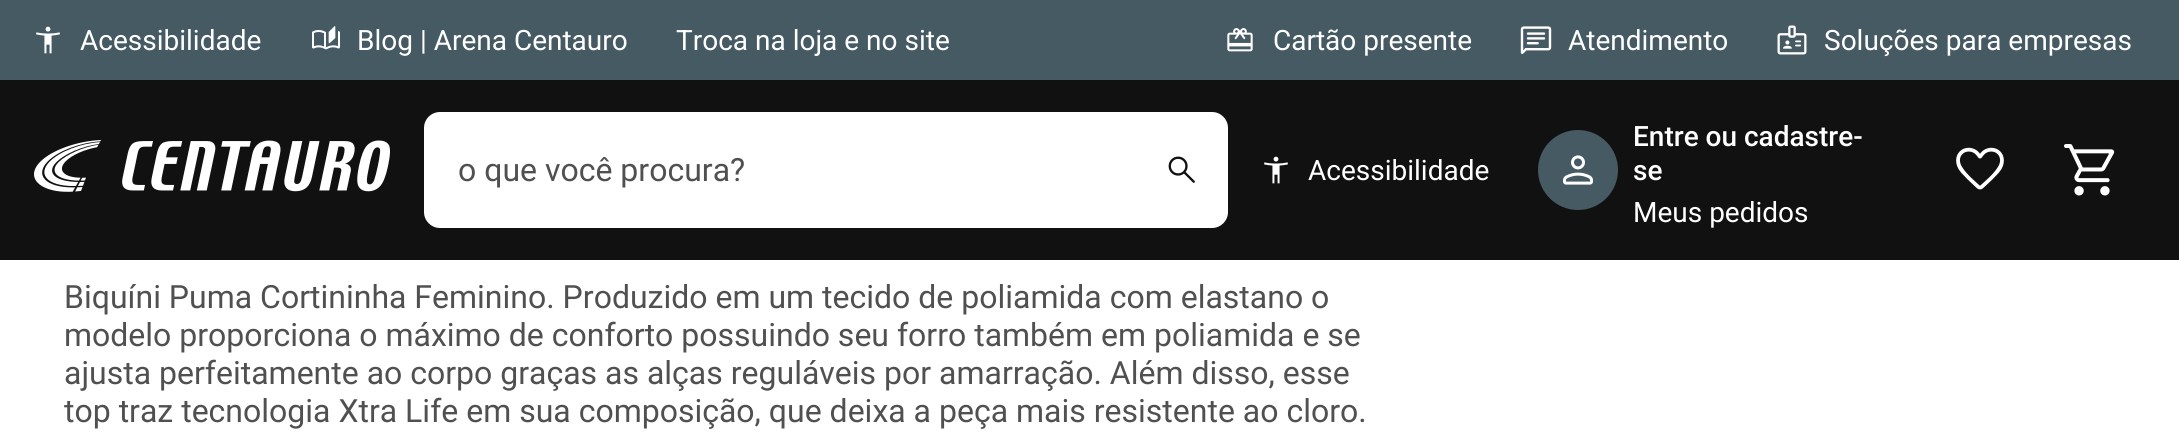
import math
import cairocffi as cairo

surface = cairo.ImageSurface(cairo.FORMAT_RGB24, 2179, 444)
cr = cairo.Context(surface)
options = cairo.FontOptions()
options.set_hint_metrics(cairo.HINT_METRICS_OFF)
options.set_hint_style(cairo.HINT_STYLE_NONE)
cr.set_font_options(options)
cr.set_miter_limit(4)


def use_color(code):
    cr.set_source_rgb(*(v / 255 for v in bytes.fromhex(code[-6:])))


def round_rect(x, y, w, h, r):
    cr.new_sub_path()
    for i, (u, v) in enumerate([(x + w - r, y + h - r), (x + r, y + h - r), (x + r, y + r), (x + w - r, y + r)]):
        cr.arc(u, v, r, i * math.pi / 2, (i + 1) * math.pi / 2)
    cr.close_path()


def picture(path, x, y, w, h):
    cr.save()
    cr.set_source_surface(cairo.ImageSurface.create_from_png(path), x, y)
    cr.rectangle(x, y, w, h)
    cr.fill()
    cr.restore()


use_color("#ffffff")
cr.paint()
use_color("#111111")
cr.rectangle(0, 80, 2179, 180)
cr.fill()
use_color("#465a64")
cr.rectangle(0, 0, 2179, 80)
cr.fill()
picture("img1.png", 36, 26, 24, 28)
cr.select_font_face("Roboto")
cr.set_font_size(28)
use_color("#ffffff")
cr.move_to(80, 50)
cr.show_text("Acessibilidade")
picture("img2.png", 312, 26, 28, 24)
cr.move_to(357, 50)
cr.show_text("Blog | Arena Centauro")
cr.move_to(676, 50)
cr.show_text("Troca na loja e no site")
picture("img3.png", 1227, 28, 26, 24)
cr.move_to(1273, 50)
cr.show_text("Cartão presente")
picture("img4.png", 1520, 26, 32, 28)
cr.move_to(1568, 50)
cr.show_text("Atendimento")
picture("img5.png", 1777, 25, 30, 30)
cr.move_to(1824, 50)
cr.show_text("Soluções para empresas")
picture("img6.png", 34, 140, 356, 52)
round_rect(424, 112, 804, 116, 16)
cr.fill()
cr.set_font_size(32)
use_color("#505050")
cr.move_to(458, 181)
cr.show_text("o que você procura?")
picture("img7.png", 1168, 156, 27, 27)
picture("img8.png", 1264, 156, 24, 28)
cr.set_font_size(28)
use_color("#ffffff")
cr.move_to(1308, 180)
cr.show_text("Acessibilidade")
use_color("#465a64")
cr.new_path()
cr.arc(1578, 170, 40, 0, 2 * math.pi)
cr.fill()
picture("img9.png", 1563, 155, 30, 30)
cr.select_font_face("Roboto Medium")
use_color("#ffffff")
cr.move_to(1633, 146)
cr.show_text("Entre ou cadastre-")
cr.move_to(1633, 180)
cr.show_text("se")
cr.select_font_face("Roboto")
cr.move_to(1633, 222)
cr.show_text("Meus pedidos")
picture("img10.png", 1956, 147, 48, 43)
picture("img11.png", 2064, 144, 51, 52)
cr.set_font_size(32)
use_color("#505050")
cr.move_to(64, 308)
cr.show_text("Biquíni Puma Cortininha Feminino. Produzido em um tecido de poliamida com elastano o")
cr.move_to(64, 346)
cr.show_text("modelo proporciona o máximo de conforto possuindo seu forro também em poliamida e se")
cr.move_to(64, 384)
cr.show_text("ajusta perfeitamente ao corpo graças as alças reguláveis por amarração. Além disso, esse")
cr.move_to(64, 422)
cr.show_text("top traz tecnologia Xtra Life em sua composição, que deixa a peça mais resistente ao cloro.")
surface.write_to_png("result.png")
